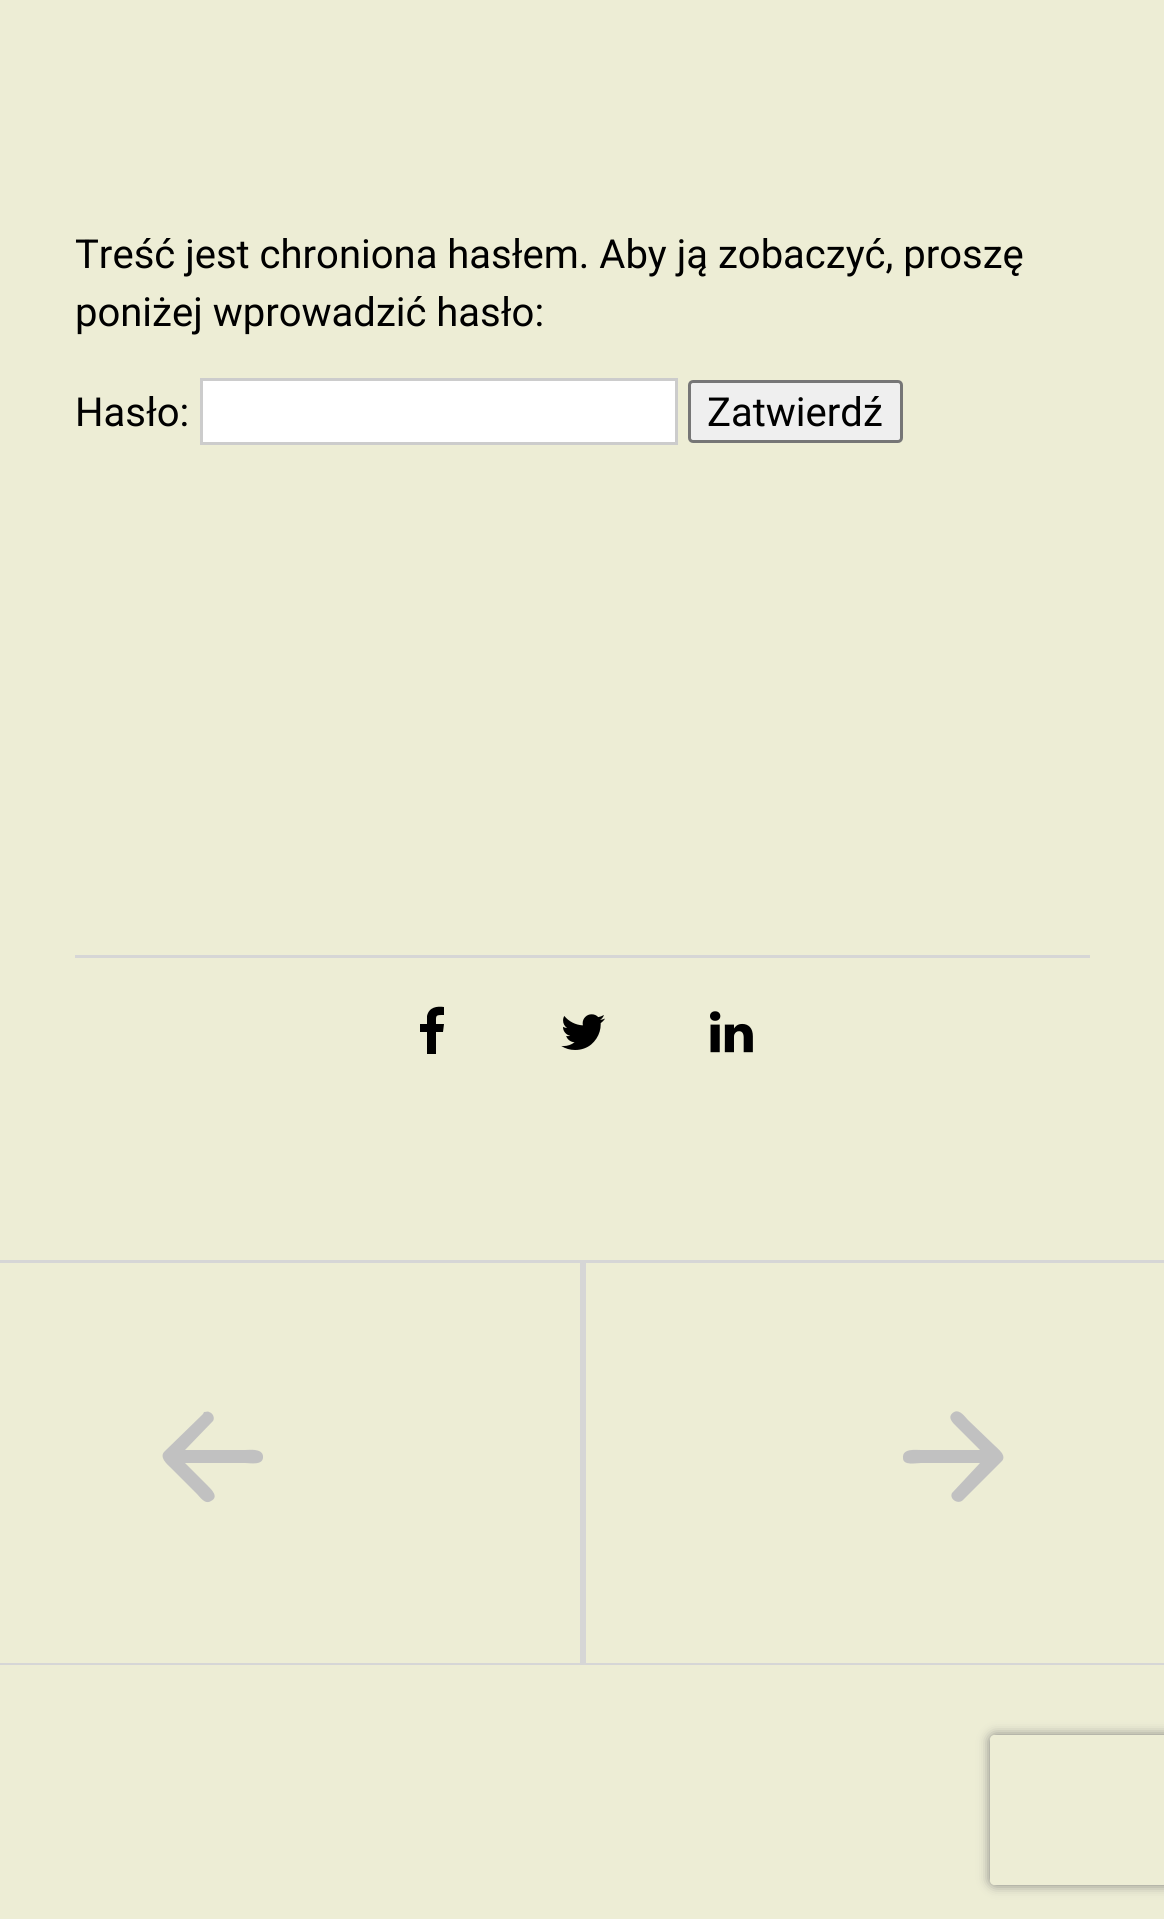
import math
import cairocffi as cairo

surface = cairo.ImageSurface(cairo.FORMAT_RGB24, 1164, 1919)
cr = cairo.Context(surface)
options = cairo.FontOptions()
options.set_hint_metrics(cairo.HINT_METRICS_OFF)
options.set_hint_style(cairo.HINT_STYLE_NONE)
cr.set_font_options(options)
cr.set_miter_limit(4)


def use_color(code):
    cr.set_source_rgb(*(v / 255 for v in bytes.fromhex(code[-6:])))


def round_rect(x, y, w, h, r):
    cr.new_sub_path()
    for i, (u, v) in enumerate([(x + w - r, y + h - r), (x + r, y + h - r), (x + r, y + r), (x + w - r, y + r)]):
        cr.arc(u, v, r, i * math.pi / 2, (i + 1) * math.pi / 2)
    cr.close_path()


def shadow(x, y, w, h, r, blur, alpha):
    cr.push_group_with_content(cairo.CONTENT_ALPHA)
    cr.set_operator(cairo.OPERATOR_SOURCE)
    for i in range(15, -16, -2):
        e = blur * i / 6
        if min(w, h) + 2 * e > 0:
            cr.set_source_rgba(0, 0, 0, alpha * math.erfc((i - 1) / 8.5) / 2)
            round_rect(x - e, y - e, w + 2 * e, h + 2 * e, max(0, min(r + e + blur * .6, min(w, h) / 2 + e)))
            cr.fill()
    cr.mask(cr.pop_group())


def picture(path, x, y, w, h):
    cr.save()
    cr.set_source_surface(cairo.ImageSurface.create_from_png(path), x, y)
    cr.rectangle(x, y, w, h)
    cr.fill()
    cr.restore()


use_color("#ededd5")
cr.paint()
cr.select_font_face("Roboto")
cr.set_font_size(40)
use_color("#000000")
cr.move_to(75, 268)
cr.show_text("Treść jest chroniona hasłem. Aby ją zobaczyć, proszę")
cr.move_to(75, 326)
cr.show_text("poniżej wprowadzić hasło:")
cr.move_to(75, 426)
cr.show_text("Hasło:")
use_color("#ffffff")
cr.rectangle(201.5, 379.5, 475, 64)
cr.fill_preserve()
use_color("#cccccc")
cr.set_line_width(3)
cr.stroke()
use_color("#efefef")
round_rect(689.5, 381.5, 212, 60, 3.5)
cr.fill_preserve()
use_color("#767676")
cr.stroke()
use_color("#000000")
cr.move_to(707, 426)
cr.show_text("Zatwierdź")
use_color("#d6d6d6")
cr.rectangle(75, 955, 1015, 3)
cr.fill()
use_color("#000000")
cr.new_path()
cr.move_to(444, 1007)
cr.line_to(444, 1015)
cr.curve_to(435, 1015, 436, 1015, 436, 1024)
cr.line_to(444, 1024)
cr.line_to(443, 1032)
cr.line_to(436, 1032)
cr.line_to(436, 1054)
cr.line_to(427, 1054)
cr.line_to(427, 1032)
cr.line_to(420, 1032)
cr.line_to(420, 1024)
cr.line_to(427, 1024)
cr.line_to(427, 1016)
cr.curve_to(429, 1007, 437, 1006, 444, 1007)
cr.close_path()
cr.fill()
picture("img1.png", 561, 1014, 44, 36)
picture("img2.png", 710, 1011, 43, 42)
use_color("#d6d6d6")
cr.rectangle(0, 1260, 1164, 3)
cr.fill()
cr.rectangle(0, 1663, 1164, 2)
cr.fill()
cr.rectangle(580, 1263, 6, 400)
cr.fill()
use_color("#c1c1c1")
cr.new_path()
cr.move_to(203, 1414)
cr.line_to(165, 1451)
cr.curve_to(158, 1457, 168, 1465, 171, 1468)
cr.line_to(197, 1494)
cr.curve_to(200, 1497, 205, 1505, 211, 1501)
cr.curve_to(219, 1497, 212, 1490, 208, 1486)
cr.line_to(185, 1463)
cr.line_to(245, 1463)
cr.curve_to(250, 1463, 264, 1466, 263, 1456)
cr.curve_to(262, 1448, 249, 1450, 245, 1450)
cr.line_to(185, 1450)
cr.line_to(213, 1421)
cr.curve_to(215, 1418, 213, 1413, 209, 1412)
cr.curve_to(208, 1411, 206, 1412, 204, 1412)
cr.close_path()
cr.fill()
cr.new_path()
cr.move_to(963, 1500)
cr.line_to(1001, 1462)
cr.curve_to(1008, 1456, 998, 1449, 994, 1445)
cr.line_to(968, 1420)
cr.curve_to(965, 1417, 960, 1409, 954, 1412)
cr.curve_to(946, 1417, 953, 1423, 957, 1427)
cr.line_to(980, 1450)
cr.line_to(921, 1450)
cr.curve_to(916, 1450, 902, 1448, 903, 1458)
cr.curve_to(903, 1466, 916, 1463, 921, 1463)
cr.line_to(980, 1463)
cr.line_to(952, 1493)
cr.curve_to(949, 1499, 958, 1505, 963, 1500)
cr.close_path()
cr.fill()
cr.save()
cr.set_fill_rule(cairo.FILL_RULE_EVEN_ODD)
cr.new_path()
cr.move_to(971, 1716)
cr.line_to(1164, 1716)
cr.line_to(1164, 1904)
cr.line_to(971, 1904)
cr.close_path()
cr.move_to(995, 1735)
cr.line_to(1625, 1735)
cr.curve_to(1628, 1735, 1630, 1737, 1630, 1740)
cr.line_to(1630, 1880)
cr.curve_to(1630, 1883, 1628, 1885, 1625, 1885)
cr.line_to(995, 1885)
cr.curve_to(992, 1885, 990, 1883, 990, 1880)
cr.line_to(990, 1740)
cr.curve_to(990, 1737, 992, 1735, 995, 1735)
cr.close_path()
cr.clip()
use_color("#808080")
shadow(990, 1735, 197, 150, 5, 6, 1)
cr.restore()
surface.write_to_png("result.png")
